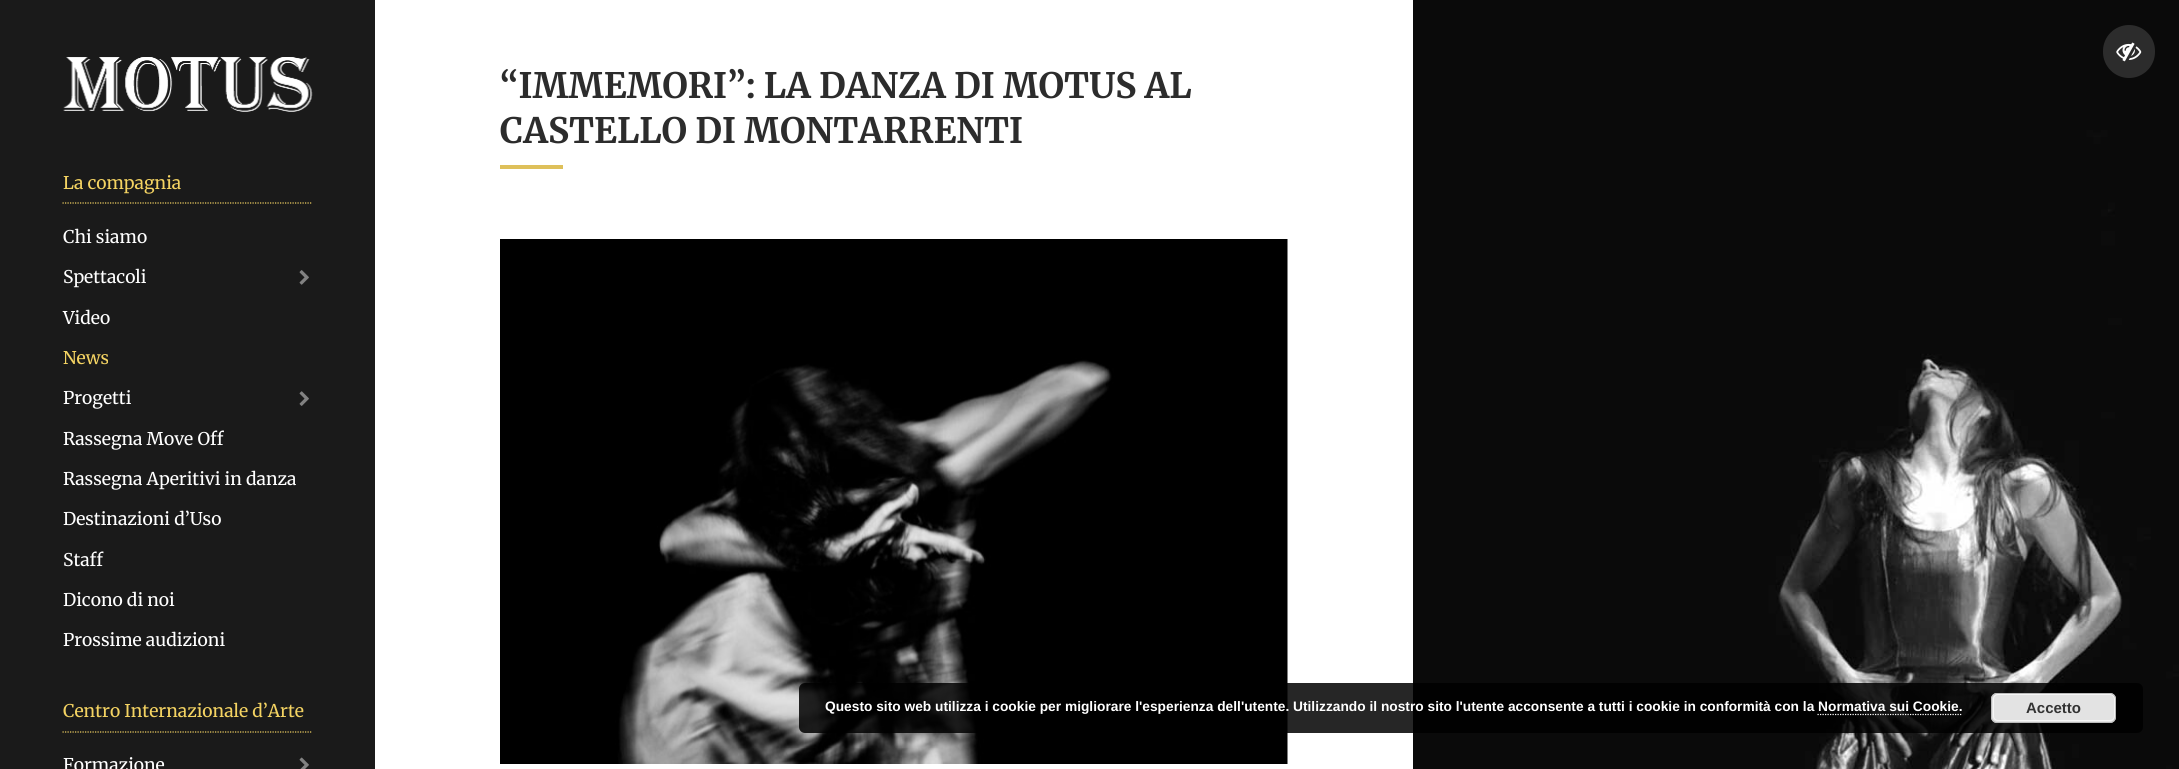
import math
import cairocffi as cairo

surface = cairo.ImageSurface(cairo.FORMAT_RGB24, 2179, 769)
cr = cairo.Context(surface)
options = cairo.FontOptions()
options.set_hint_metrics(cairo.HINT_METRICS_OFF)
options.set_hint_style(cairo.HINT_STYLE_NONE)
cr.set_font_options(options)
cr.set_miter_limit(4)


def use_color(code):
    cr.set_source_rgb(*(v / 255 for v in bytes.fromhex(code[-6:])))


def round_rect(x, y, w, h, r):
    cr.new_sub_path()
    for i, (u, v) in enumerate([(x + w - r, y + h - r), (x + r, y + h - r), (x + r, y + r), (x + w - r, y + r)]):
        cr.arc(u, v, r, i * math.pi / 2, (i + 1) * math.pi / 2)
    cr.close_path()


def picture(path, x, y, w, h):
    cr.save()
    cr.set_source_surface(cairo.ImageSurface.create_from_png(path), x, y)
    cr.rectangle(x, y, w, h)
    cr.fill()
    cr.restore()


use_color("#1a1a1a")
cr.paint()
use_color("#ffffff")
cr.rectangle(375, 0, 1038, 769)
cr.fill()
cr.select_font_face("Merriweather", cairo.FONT_SLANT_NORMAL, cairo.FONT_WEIGHT_BOLD)
cr.set_font_size(35)
use_color("#2c2c2c")
cr.move_to(500, 98)
cr.show_text("“IMMEMORI”: LA DANZA DI MOTUS AL")
cr.move_to(500, 143)
cr.show_text("CASTELLO DI MONTARRENTI")
use_color("#dec05a")
cr.rectangle(500, 165, 63, 4)
cr.fill()
picture("img1.png", 500, 239, 788, 525)
picture("img2.png", 63, 57, 250, 55)
cr.new_path()
cr.move_to(62.5, 203)
cr.line_to(312.5, 203)
use_color("#f4d362")
cr.set_line_width(1.2)
cr.set_dash([1.25, 1.25])
cr.stroke()
cr.select_font_face("Merriweather")
cr.set_font_size(17.5)
cr.move_to(63, 189)
cr.show_text("La compagnia")
use_color("#ffffff")
cr.move_to(63, 243)
cr.show_text("Chi siamo")
cr.move_to(63, 283)
cr.show_text("Spettacoli")
picture("img3.png", 299, 270, 10, 15)
cr.move_to(63, 324)
cr.show_text("Video")
use_color("#f4d362")
cr.move_to(63, 364)
cr.show_text("News")
use_color("#ffffff")
cr.move_to(63, 404)
cr.show_text("Progetti")
picture("img4.png", 299, 391, 10, 15)
cr.move_to(63, 445)
cr.show_text("Rassegna Move Off")
cr.move_to(63, 485)
cr.show_text("Rassegna Aperitivi in danza")
cr.move_to(63, 525)
cr.show_text("Destinazioni d’Uso")
cr.move_to(63, 566)
cr.show_text("Staff")
cr.move_to(63, 606)
cr.show_text("Dicono di noi")
cr.move_to(63, 646)
cr.show_text("Prossime audizioni")
cr.new_path()
cr.move_to(62.5, 732)
cr.line_to(312.5, 732)
use_color("#f4d362")
cr.stroke()
cr.move_to(63, 717)
cr.show_text("Centro Internazionale d’Arte")
use_color("#ffffff")
cr.move_to(63, 771)
cr.show_text("Formazione")
picture("img5.png", 299, 757, 10, 12)
picture("img6.png", 1413, 0, 766, 769)
use_color("#2c2c2c")
round_rect(2103, 25, 52, 53, 26)
cr.fill()
picture("img7.png", 2116, 42, 26, 20)
cr.set_source_rgba(0, 0, 0, 0.85)
round_rect(799, 683, 1344, 50, 6)
cr.fill()
cr.select_font_face("Liberation Sans", cairo.FONT_SLANT_NORMAL, cairo.FONT_WEIGHT_BOLD)
cr.set_font_size(13.75)
use_color("#ffffff")
cr.move_to(825, 711)
cr.show_text("Questo sito web utilizza i cookie per migliorare l'esperienza dell'utente. Utilizzando il nostro sito l'utente acconsente a tutti i cookie in conformità con la Normativa sui Cookie.")
use_color("#e3e3e3")
round_rect(1991, 693, 125, 30, 6)
cr.fill()
round_rect(1993.5, 694.5, 121, 26, 4.5)
use_color("#f6f6f6")
cr.set_line_width(1)
cr.set_dash([])
cr.stroke()
round_rect(1991.5, 693.5, 124, 29, 5.5)
use_color("#bbbbbb")
cr.stroke()
cr.set_font_size(15)
use_color("#333333")
cr.move_to(2026, 713)
cr.show_text("Accetto")
cr.new_path()
cr.move_to(1817.5, 714.5)
cr.line_to(1962.5, 714.5)
use_color("#ffffff")
cr.set_line_width(1.2)
cr.set_dash([1.25, 1.25])
cr.stroke()
surface.write_to_png("result.png")
